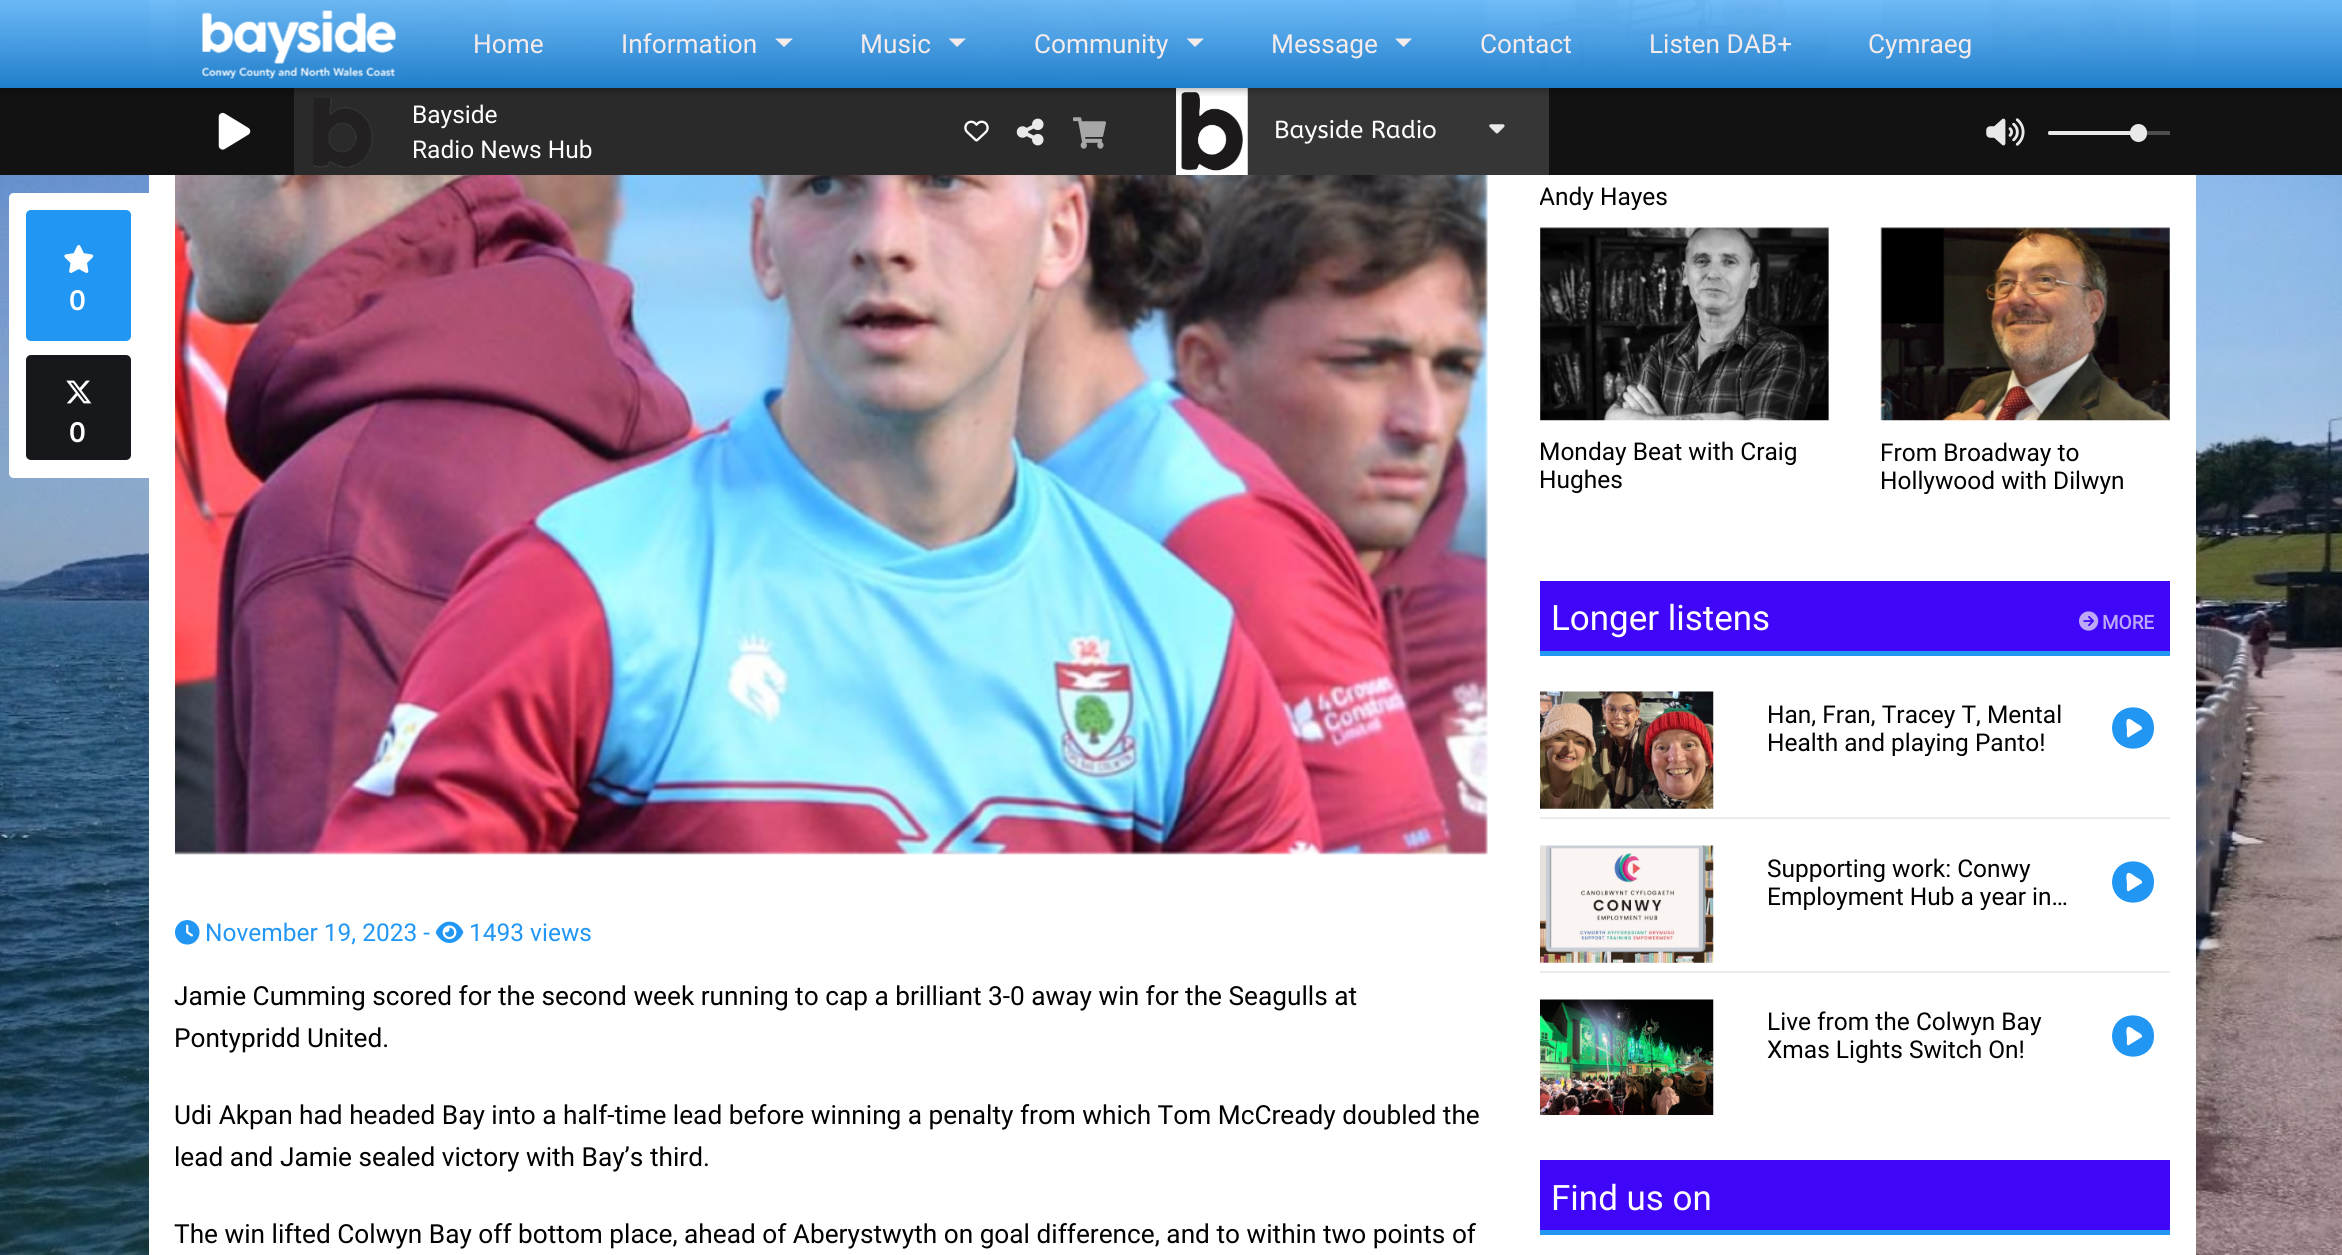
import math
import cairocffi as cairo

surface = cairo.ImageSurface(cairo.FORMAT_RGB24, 2342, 1255)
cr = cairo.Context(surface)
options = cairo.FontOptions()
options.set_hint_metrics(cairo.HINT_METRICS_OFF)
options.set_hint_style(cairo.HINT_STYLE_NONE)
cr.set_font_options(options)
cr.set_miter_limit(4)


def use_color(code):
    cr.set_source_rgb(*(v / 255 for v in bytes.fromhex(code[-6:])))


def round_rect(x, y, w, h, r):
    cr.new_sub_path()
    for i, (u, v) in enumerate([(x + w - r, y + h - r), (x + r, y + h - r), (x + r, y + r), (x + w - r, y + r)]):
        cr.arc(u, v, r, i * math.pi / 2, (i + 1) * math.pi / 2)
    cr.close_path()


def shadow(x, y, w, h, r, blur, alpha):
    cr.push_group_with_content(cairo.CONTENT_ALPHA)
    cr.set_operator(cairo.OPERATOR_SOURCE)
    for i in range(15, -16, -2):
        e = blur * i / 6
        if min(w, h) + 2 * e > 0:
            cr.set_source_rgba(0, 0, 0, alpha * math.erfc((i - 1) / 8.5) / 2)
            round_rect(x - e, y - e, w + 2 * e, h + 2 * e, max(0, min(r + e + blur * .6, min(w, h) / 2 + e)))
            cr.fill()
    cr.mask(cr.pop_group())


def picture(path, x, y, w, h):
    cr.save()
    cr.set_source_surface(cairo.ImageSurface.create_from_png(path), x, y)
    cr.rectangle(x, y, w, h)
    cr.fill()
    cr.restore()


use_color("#ffffff")
cr.paint()
picture("img1.png", 0, 0, 2342, 1255)
use_color("#ffffff")
cr.rectangle(149, 0, 2047, 1255)
cr.fill()
picture("img13.png", 175, 0, 1313, 855)
use_color("#131212")
cr.rectangle(0, 88, 2342, 87)
cr.fill()
use_color("#2b2a2a")
cr.rectangle(294, 88, 882, 87)
cr.fill()
picture("img4.png", 313, 98, 60, 70)
use_color("#363636")
cr.rectangle(1176, 88, 373, 87)
cr.fill()
picture("img8.png", 1176, 88, 72, 87)
picture("img16.png", 1540, 0, 289, 71)
picture("img18.png", 1880, 0, 290, 71)
cr.save()
cr.rectangle(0, 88, 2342, 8)
cr.clip()
use_color("#000000")
shadow(0, 2, 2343, 87, 0, 4.5, 0.4)
cr.restore()
gradient = cairo.LinearGradient(1172, 0, 1172, 88)
gradient.add_color_stop_rgba(0, 0.424, 0.729, 0.973, 0.97)
gradient.add_color_stop_rgba(1, 0.122, 0.494, 0.792, 1)
cr.set_source(gradient)
cr.rectangle(0, 0, 2342, 88)
cr.fill()
picture("img2.png", 201, 10, 195, 69)
cr.select_font_face("Roboto")
cr.set_font_size(26.25)
use_color("#f5ebeb")
cr.move_to(473, 53)
cr.show_text("Home")
cr.move_to(621, 53)
cr.show_text("Information")
cr.new_path()
cr.move_to(775, 38.5)
cr.line_to(793, 38.5)
cr.line_to(784, 47)
cr.close_path()
cr.fill()
cr.move_to(860, 53)
cr.show_text("Music")
cr.new_path()
cr.move_to(948.5, 38.5)
cr.line_to(966, 38.5)
cr.line_to(957, 47)
cr.close_path()
cr.fill()
cr.move_to(1034, 53)
cr.show_text("Community")
cr.new_path()
cr.move_to(1186.5, 38.5)
cr.line_to(1204, 38.5)
cr.line_to(1195, 47)
cr.close_path()
cr.fill()
cr.move_to(1271, 53)
cr.show_text("Message")
cr.new_path()
cr.move_to(1395, 38.5)
cr.line_to(1412, 38.5)
cr.line_to(1403.5, 47)
cr.close_path()
cr.fill()
cr.move_to(1480, 53)
cr.show_text("Contact")
cr.move_to(1649, 53)
cr.show_text("Listen DAB+")
cr.move_to(1868, 53)
cr.show_text("Cymraeg")
picture("img3.png", 218, 112, 33, 38)
cr.set_font_size(24.5)
use_color("#ffffff")
cr.move_to(412, 123)
cr.show_text("Bayside")
cr.move_to(412, 158)
cr.show_text("Radio News Hub")
picture("img5.png", 964, 120, 25, 22)
picture("img6.png", 1016, 118, 28, 28)
picture("img7.png", 1073, 117, 33, 32)
cr.select_font_face("ABeeZee")
cr.move_to(1274, 138)
cr.show_text("Bayside Radio")
picture("img9.png", 1489, 124, 16, 10)
picture("img10.png", 1986, 118, 39, 28)
use_color("#4e4d4d")
cr.rectangle(2048, 131, 122, 4)
cr.fill()
use_color("#e9e9e9")
round_rect(2048, 131, 91, 4, 2)
cr.fill()
round_rect(2130, 124, 17, 18, 8.5)
cr.fill()
use_color("#ffffff")
cr.new_path()
cr.move_to(14, 193)
cr.line_to(149, 193)
cr.line_to(149, 478)
cr.line_to(14, 478)
cr.curve_to(11, 478, 9, 476, 9, 473)
cr.line_to(9, 198)
cr.curve_to(9, 195, 11, 193, 14, 193)
cr.close_path()
cr.fill()
use_color("#2196f3")
round_rect(26, 210, 105, 131, 5)
cr.fill()
picture("img11.png", 64, 245, 30, 28)
cr.select_font_face("Nunito", cairo.FONT_SLANT_NORMAL, cairo.FONT_WEIGHT_BOLD)
cr.set_font_size(28)
use_color("#ffffff")
cr.move_to(69, 310)
cr.show_text("0")
use_color("#16181c")
round_rect(26, 355, 105, 105, 5)
cr.fill()
picture("img12.png", 66, 380, 26, 24)
use_color("#ffffff")
cr.move_to(69, 442)
cr.show_text("0")
picture("img14.png", 175, 920, 25, 25)
cr.select_font_face("Roboto")
cr.set_font_size(24.5)
use_color("#2196f3")
cr.move_to(205, 941)
cr.show_text("November 19, 2023 -")
picture("img15.png", 435, 921, 29, 22)
cr.move_to(469, 941)
cr.show_text("1493 views")
cr.set_font_size(26.25)
use_color("#000000")
cr.move_to(174, 1005)
cr.show_text("Jamie Cumming scored for the second week running to cap a brilliant 3-0 away win for the Seagulls at")
cr.move_to(174, 1047)
cr.show_text("Pontypridd United.")
cr.move_to(174, 1124)
cr.show_text("Udi Akpan had headed Bay into a half-time lead before winning a penalty from which Tom McCready doubled the")
cr.move_to(174, 1166)
cr.show_text("lead and Jamie sealed victory with Bay’s third.")
cr.move_to(174, 1243)
cr.show_text("The win lifted Colwyn Bay off bottom place, ahead of Aberystwyth on goal difference, and to within two points of")
cr.save()
cr.rectangle(1540, 154, 289, 56)
cr.clip()
cr.set_font_size(24.5)
cr.move_to(1539, 205)
cr.show_text("Andy Hayes")
cr.restore()
picture("img17.png", 1540, 227, 289, 194)
cr.set_font_size(24.5)
cr.move_to(1539, 460)
cr.show_text("Monday Beat with Craig")
cr.move_to(1539, 488)
cr.show_text("Hughes")
picture("img19.png", 1880, 227, 290, 194)
cr.move_to(1880, 461)
cr.show_text("From Broadway to")
cr.save()
cr.rectangle(1881, 438, 289, 56)
cr.clip()
cr.move_to(1880, 489)
cr.show_text("Hollywood with Dilwyn")
cr.restore()
use_color("#4006f9")
cr.rectangle(1540, 581, 630, 70)
cr.fill()
use_color("#2196f3")
cr.rectangle(1540, 651, 630, 5)
cr.fill()
cr.set_font_size(35)
use_color("#ffffff")
cr.move_to(1551, 630)
cr.show_text("Longer listens")
picture("img20.png", 2079, 611, 20, 20)
cr.select_font_face("Roboto", cairo.FONT_SLANT_NORMAL, cairo.FONT_WEIGHT_BOLD)
cr.set_font_size(19)
use_color("#bca9f7")
cr.move_to(2102, 629)
cr.show_text("MORE")
picture("img21.png", 1540, 691, 174, 118)
cr.select_font_face("Roboto")
cr.set_font_size(24.5)
use_color("#000000")
cr.move_to(1767, 723)
cr.show_text("Han, Fran, Tracey T, Mental")
cr.save()
cr.rectangle(1766, 700, 332, 56)
cr.clip()
cr.move_to(1767, 751)
cr.show_text("Health and playing Panto!")
cr.restore()
use_color("#2196f3")
cr.new_path()
cr.move_to(2112, 728)
cr.curve_to(2113, 700, 2154, 701, 2154, 728)
cr.curve_to(2154, 755, 2113, 756, 2112, 728)
cr.close_path()
cr.move_to(2128, 719)
cr.curve_to(2125, 720, 2127, 728, 2127, 730)
cr.curve_to(2127, 732, 2126, 739, 2129, 737)
cr.line_to(2142, 729)
cr.curve_to(2143, 726, 2137, 724, 2136, 723)
cr.curve_to(2134, 722, 2130, 718, 2128, 719)
cr.close_path()
cr.fill()
use_color("#ebebeb")
cr.rectangle(1540, 817, 630, 2)
cr.fill()
picture("img22.png", 1540, 845, 174, 118)
use_color("#000000")
cr.move_to(1767, 877)
cr.show_text("Supporting work: Conwy")
cr.save()
cr.rectangle(1766, 854, 332, 56)
cr.clip()
cr.move_to(1767, 905)
cr.show_text("Employment Hub a year in…")
cr.restore()
use_color("#2196f3")
cr.new_path()
cr.move_to(2112, 882)
cr.curve_to(2113, 854, 2154, 855, 2154, 882)
cr.curve_to(2154, 909, 2113, 910, 2112, 882)
cr.close_path()
cr.move_to(2128, 873)
cr.curve_to(2125, 874, 2127, 882, 2127, 884)
cr.curve_to(2127, 886, 2126, 893, 2129, 891)
cr.line_to(2142, 883)
cr.curve_to(2143, 880, 2137, 878, 2136, 877)
cr.curve_to(2134, 876, 2130, 872, 2128, 873)
cr.close_path()
cr.fill()
use_color("#ebebeb")
cr.rectangle(1540, 971, 630, 2)
cr.fill()
picture("img23.png", 1540, 999, 174, 116)
use_color("#000000")
cr.move_to(1767, 1030)
cr.show_text("Live from the Colwyn Bay")
cr.move_to(1767, 1058)
cr.show_text("Xmas Lights Switch On!")
use_color("#2196f3")
cr.new_path()
cr.move_to(2112, 1036)
cr.curve_to(2113, 1008, 2154, 1009, 2154, 1036)
cr.curve_to(2154, 1063, 2113, 1064, 2112, 1036)
cr.close_path()
cr.move_to(2128, 1027)
cr.curve_to(2125, 1028, 2127, 1036, 2127, 1038)
cr.curve_to(2127, 1040, 2126, 1047, 2129, 1045)
cr.line_to(2142, 1037)
cr.curve_to(2143, 1034, 2137, 1032, 2136, 1031)
cr.curve_to(2134, 1030, 2130, 1026, 2128, 1027)
cr.close_path()
cr.fill()
use_color("#4006f9")
cr.rectangle(1540, 1160, 630, 70)
cr.fill()
use_color("#2196f3")
cr.rectangle(1540, 1230, 630, 5)
cr.fill()
cr.set_font_size(35)
use_color("#ffffff")
cr.move_to(1551, 1210)
cr.show_text("Find us on")
surface.write_to_png("result.png")
